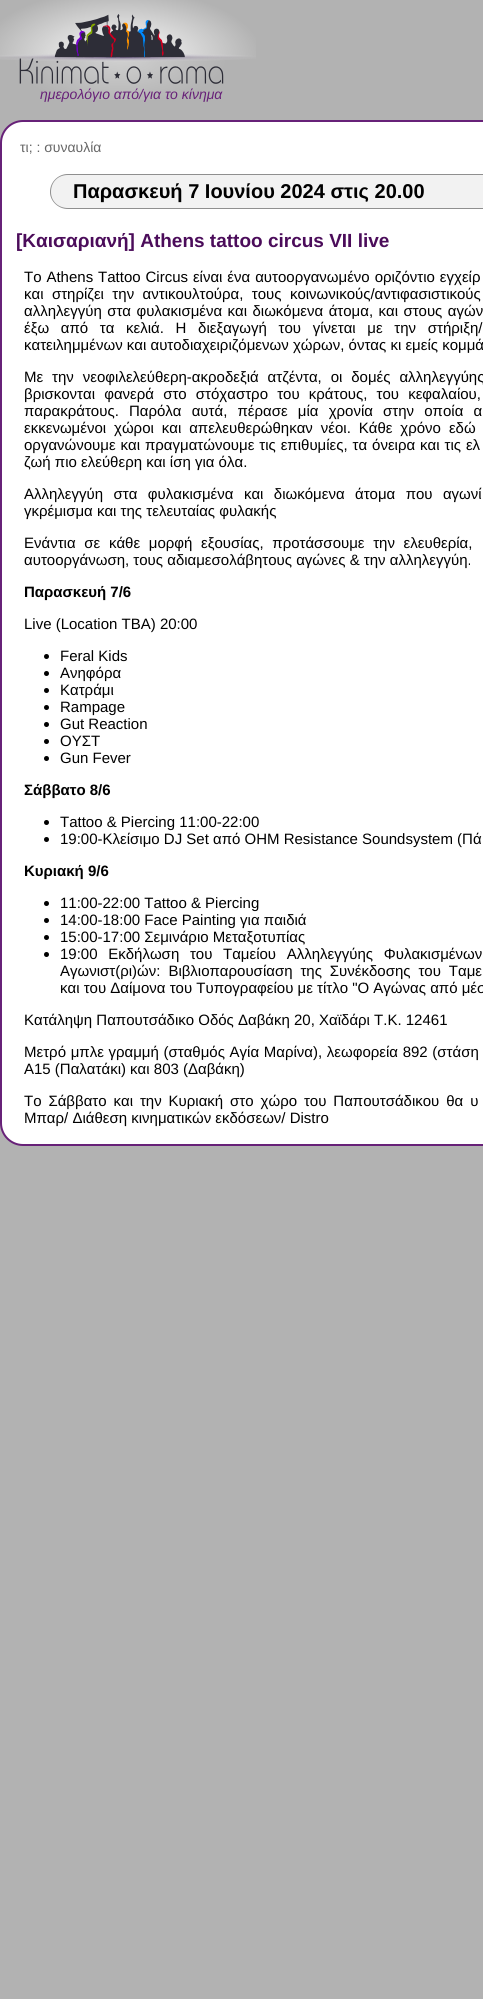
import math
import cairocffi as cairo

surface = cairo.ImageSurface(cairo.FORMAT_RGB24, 483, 1999)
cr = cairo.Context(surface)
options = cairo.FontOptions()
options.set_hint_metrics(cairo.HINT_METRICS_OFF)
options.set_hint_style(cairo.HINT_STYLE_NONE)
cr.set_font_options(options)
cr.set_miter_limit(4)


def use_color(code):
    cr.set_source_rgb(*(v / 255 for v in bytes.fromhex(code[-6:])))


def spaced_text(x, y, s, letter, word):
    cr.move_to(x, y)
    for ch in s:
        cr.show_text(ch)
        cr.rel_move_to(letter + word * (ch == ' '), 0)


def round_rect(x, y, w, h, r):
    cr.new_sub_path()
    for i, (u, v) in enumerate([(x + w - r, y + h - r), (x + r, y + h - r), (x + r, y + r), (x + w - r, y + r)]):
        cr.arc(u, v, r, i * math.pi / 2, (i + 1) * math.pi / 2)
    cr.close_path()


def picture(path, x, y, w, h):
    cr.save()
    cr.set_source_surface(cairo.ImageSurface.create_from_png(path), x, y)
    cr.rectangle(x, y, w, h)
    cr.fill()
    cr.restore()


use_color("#b2b2b2")
cr.paint()
picture("img1.png", 0, 0, 256, 100)
cr.select_font_face("Liberation Sans", cairo.FONT_SLANT_ITALIC)
cr.set_font_size(14)
use_color("#672178")
cr.move_to(40, 99)
cr.show_text("ημερολόγιο από/για το κίνημα")
use_color("#ffffff")
round_rect(1, 121, 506, 1024, 22)
cr.fill_preserve()
use_color("#672178")
cr.stroke()
cr.select_font_face("Liberation Sans")
use_color("#666666")
cr.move_to(20, 152)
cr.show_text("τι; : συναυλία")
use_color("#f2f2f2")
cr.new_path()
cr.move_to(67.5, 174)
cr.line_to(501, 174)
cr.line_to(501, 209)
cr.line_to(67.5, 209)
cr.curve_to(58, 209, 50, 201, 50, 191.5)
cr.curve_to(50, 182, 58, 174, 67.5, 174)
cr.close_path()
cr.fill()
use_color("#8f8f8f")
cr.set_fill_rule(cairo.FILL_RULE_EVEN_ODD)
cr.new_path()
cr.move_to(68, 174)
cr.line_to(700, 174)
cr.line_to(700, 209)
cr.line_to(68, 209)
cr.curve_to(58, 209, 50, 201, 50, 192)
cr.curve_to(50, 182, 58, 174, 68, 174)
cr.close_path()
cr.move_to(68, 175)
cr.line_to(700, 175)
cr.line_to(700, 208)
cr.line_to(68, 208)
cr.curve_to(58, 208, 51, 201, 51, 192)
cr.curve_to(51, 182, 58, 175, 68, 175)
cr.close_path()
cr.fill()
cr.select_font_face("Liberation Sans", cairo.FONT_SLANT_NORMAL, cairo.FONT_WEIGHT_BOLD)
cr.set_font_size(20)
use_color("#000000")
cr.move_to(73, 198)
cr.show_text("Παρασκευή 7 Ιουνίου 2024 στις 20.00")
cr.set_font_size(19)
use_color("#4b0c5a")
cr.move_to(16, 247)
cr.show_text("[Καισαριανή] Athens tattoo circus VII live")
cr.select_font_face("Liberation Sans")
cr.set_font_size(15)
use_color("#000000")
spaced_text(24, 282, "Το Athens Τattoo Circus είναι ένα αυτοοργανωμένο οριζόντιο εγχείρ", 0, 0.75)
spaced_text(24, 299, "και στηρίζει την αντικουλτούρα, τους κοινωνικούς/αντιφασιστικούς", 0, 4.25)
spaced_text(24, 316, "αλληλεγγύη στα φυλακισμένα και διωκόμενα άτομα, και στους αγών", 0, 1.25)
spaced_text(24, 333, "έξω από τα κελιά. Η διεξαγωγή του γίνεται με την στήριξη/", 0, 7.5)
cr.move_to(24, 350)
cr.show_text("κατειλημμένων και αυτοδιαχειριζόμενων χώρων, όντας κι εμείς κομμά")
spaced_text(24, 382, "Με την νεοφιλελεύθερη-ακροδεξιά ατζέντα, οι δομές αλληλεγγύης", 0, 4.75)
spaced_text(24, 399, "βρισκονται φανερά στο στόχαστρο του κράτους, του κεφαλαίου,", 0, 5)
spaced_text(24, 416, "παρακράτους. Παρόλα αυτά, πέρασε μία χρονία στην οποία α", 0, 6)
spaced_text(24, 433, "εκκενωμένοι χώροι και απελευθερώθηκαν νέοι. Κάθε χρόνο εδώ", 0, 3.75)
spaced_text(24, 450, "οργανώνουμε και πραγματώνουμε τις επιθυμίες, τα όνειρα και τις ελ", 0, 0.75)
cr.move_to(24, 467)
cr.show_text("ζωή πιο ελεύθερη και ίση για όλα.")
spaced_text(24, 499, "Αλληλεγγύη στα φυλακισμένα και διωκόμενα άτομα που αγωνί", 0, 6.25)
cr.move_to(24, 516)
cr.show_text("γκρέμισμα και της τελευταίας φυλακής")
spaced_text(24, 548, "Ενάντια σε κάθε μορφή εξουσίας, προτάσσουμε την ελευθερία,", 0, 4.5)
cr.move_to(24, 565)
cr.show_text("αυτοοργάνωση, τους αδιαμεσολάβητους αγώνες & την αλληλεγγύη.")
cr.select_font_face("Liberation Sans", cairo.FONT_SLANT_NORMAL, cairo.FONT_WEIGHT_BOLD)
cr.move_to(24, 597)
cr.show_text("Παρασκευή 7/6")
cr.select_font_face("Liberation Sans")
cr.move_to(24, 629)
cr.show_text("Live (Location TBA) 20:00")
cr.new_path()
cr.arc(46.5, 656.5, 2.5, 0, 2 * math.pi)
cr.fill()
cr.move_to(60, 661)
cr.show_text("Feral Kids")
cr.new_path()
cr.arc(46.5, 673.5, 2.5, 0, 2 * math.pi)
cr.fill()
cr.move_to(60, 678)
cr.show_text("Ανηφόρα")
cr.new_path()
cr.arc(46.5, 690.5, 2.5, 0, 2 * math.pi)
cr.fill()
cr.move_to(60, 695)
cr.show_text("Κατράμι")
cr.new_path()
cr.arc(46.5, 707.5, 2.5, 0, 2 * math.pi)
cr.fill()
cr.move_to(60, 712)
cr.show_text("Rampage")
cr.new_path()
cr.arc(46.5, 724.5, 2.5, 0, 2 * math.pi)
cr.fill()
cr.move_to(60, 729)
cr.show_text("Gut Reaction")
cr.new_path()
cr.arc(46.5, 741.5, 2.5, 0, 2 * math.pi)
cr.fill()
cr.move_to(60, 746)
cr.show_text("ΟΥΣΤ")
cr.new_path()
cr.arc(46.5, 758.5, 2.5, 0, 2 * math.pi)
cr.fill()
cr.move_to(60, 763)
cr.show_text("Gun Fever")
cr.select_font_face("Liberation Sans", cairo.FONT_SLANT_NORMAL, cairo.FONT_WEIGHT_BOLD)
cr.move_to(24, 795)
cr.show_text("Σάββατο 8/6")
cr.new_path()
cr.arc(46.5, 822.5, 2.5, 0, 2 * math.pi)
cr.fill()
cr.select_font_face("Liberation Sans")
cr.move_to(60, 827)
cr.show_text("Tattoo & Piercing 11:00-22:00")
cr.new_path()
cr.arc(46.5, 839.5, 2.5, 0, 2 * math.pi)
cr.fill()
cr.move_to(60, 844)
cr.show_text("19:00-Κλείσιμο DJ Set από OHM Resistance Soundsystem (Πά")
cr.select_font_face("Liberation Sans", cairo.FONT_SLANT_NORMAL, cairo.FONT_WEIGHT_BOLD)
cr.move_to(24, 876)
cr.show_text("Κυριακή 9/6")
cr.new_path()
cr.arc(46.5, 903.5, 2.5, 0, 2 * math.pi)
cr.fill()
cr.select_font_face("Liberation Sans")
cr.move_to(60, 908)
cr.show_text("11:00-22:00 Tattoo & Piercing")
cr.new_path()
cr.arc(46.5, 920.5, 2.5, 0, 2 * math.pi)
cr.fill()
cr.move_to(60, 925)
cr.show_text("14:00-18:00 Face Painting για παιδιά")
cr.new_path()
cr.arc(46.5, 937.5, 2.5, 0, 2 * math.pi)
cr.fill()
cr.move_to(60, 942)
cr.show_text("15:00-17:00 Σεμινάριο Μεταξοτυπίας")
cr.new_path()
cr.arc(46.5, 954.5, 2.5, 0, 2 * math.pi)
cr.fill()
spaced_text(60, 959, "19:00 Εκδήλωση του Ταμείου Αλληλεγγύης Φυλακισμένων", 0, 6.5)
spaced_text(60, 976, "Αγωνιστ(ρι)ών: Βιβλιοπαρουσίαση της Συνέκδοσης του Ταμε", 0, 3.75)
cr.move_to(60, 993)
cr.show_text("και του Δαίμονα του Τυπογραφείου με τίτλο \"Ο Αγώνας από μέσ")
cr.move_to(24, 1025)
cr.show_text("Κατάληψη Παπουτσάδικο Οδός Δαβάκη 20, Χαϊδάρι Τ.Κ. 12461")
spaced_text(24, 1057, "Μετρό μπλε γραμμή (σταθμός Αγία Μαρίνα), λεωφορεία 892 (στάση", 0, 0.5)
cr.move_to(24, 1074)
cr.show_text("Α15 (Παλατάκι) και 803 (Δαβάκη)")
spaced_text(24, 1106, "Το Σάββατο και την Κυριακή στο χώρο του Παπουτσάδικου θα υ", 0, 2.75)
cr.move_to(24, 1123)
cr.show_text("Μπαρ/ Διάθεση κινηματικών εκδόσεων/ Distro")
surface.write_to_png("result.png")
